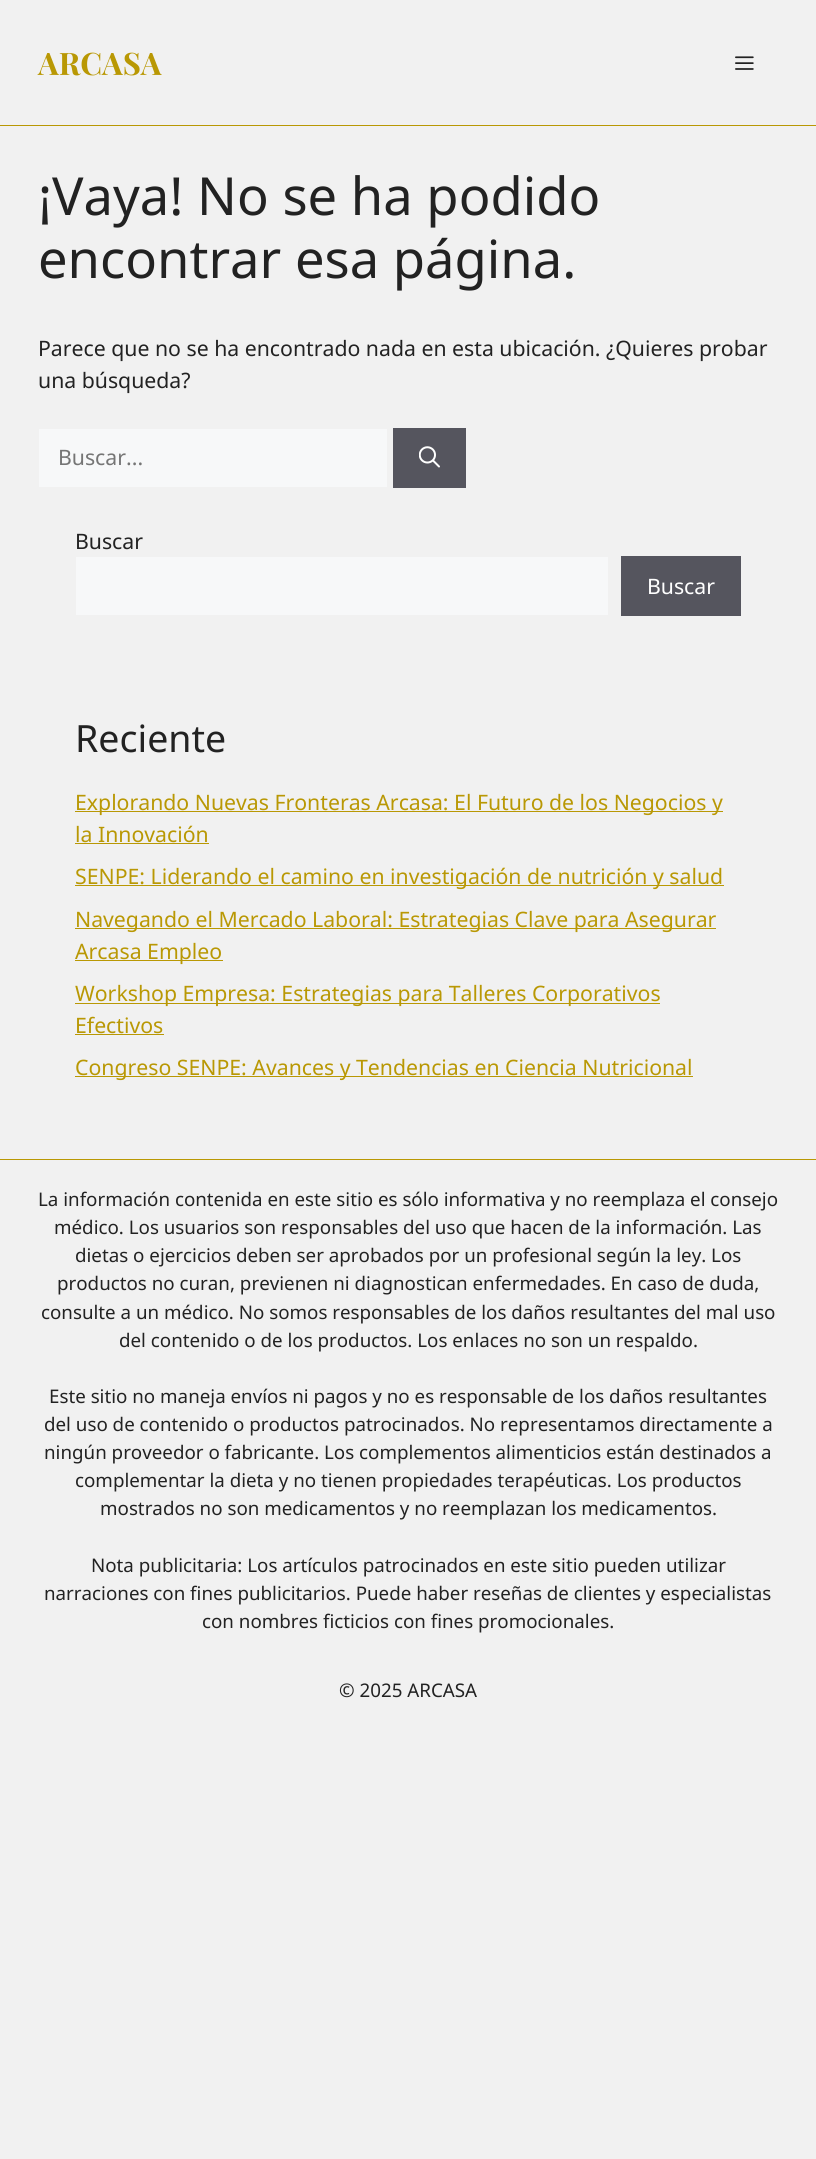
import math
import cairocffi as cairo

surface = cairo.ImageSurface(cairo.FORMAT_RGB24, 816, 2159)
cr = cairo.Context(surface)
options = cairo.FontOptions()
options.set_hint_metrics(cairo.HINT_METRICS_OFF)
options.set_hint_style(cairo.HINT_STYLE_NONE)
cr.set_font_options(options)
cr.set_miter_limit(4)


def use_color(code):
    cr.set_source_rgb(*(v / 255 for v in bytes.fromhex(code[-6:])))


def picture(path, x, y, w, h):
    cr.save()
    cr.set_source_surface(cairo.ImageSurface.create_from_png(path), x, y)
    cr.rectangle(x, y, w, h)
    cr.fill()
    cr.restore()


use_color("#f1f1f1")
cr.paint()
use_color("#b99804")
cr.rectangle(0, 125, 816, 1)
cr.fill()
cr.select_font_face("Playfair Display", cairo.FONT_SLANT_NORMAL, cairo.FONT_WEIGHT_BOLD)
cr.set_font_size(31)
cr.move_to(38, 75)
cr.show_text("ARCASA")
picture("img1.png", 735, 56, 19, 14)
cr.select_font_face("Noto Sans")
cr.set_font_size(52.5)
use_color("#222222")
cr.move_to(38, 215)
cr.show_text("¡Vaya! No se ha podido")
cr.move_to(38, 278)
cr.show_text("encontrar esa página.")
cr.set_font_size(21.25)
cr.move_to(38, 356)
cr.show_text("Parece que no se ha encontrado nada en esta ubicación. ¿Quieres probar")
cr.move_to(38, 388)
cr.show_text("una búsqueda?")
use_color("#f7f8f9")
cr.rectangle(39, 429, 348, 58)
cr.fill()
use_color("#757575")
cr.move_to(58, 465)
cr.show_text("Buscar...")
use_color("#55555e")
cr.rectangle(393, 428, 73, 60)
cr.fill()
picture("img2.png", 419, 446, 21, 22)
use_color("#222222")
cr.move_to(75, 549)
cr.show_text("Buscar")
use_color("#f7f8f9")
cr.rectangle(76, 557, 532, 58)
cr.fill()
use_color("#55555e")
cr.rectangle(621, 556, 120, 60)
cr.fill()
use_color("#ffffff")
cr.move_to(647, 594)
cr.show_text("Buscar")
cr.set_font_size(37.5)
use_color("#222222")
cr.move_to(75, 752)
cr.show_text("Reciente")
use_color("#b99804")
cr.rectangle(75, 811, 648, 1)
cr.fill()
cr.set_font_size(21.25)
cr.move_to(75, 810)
cr.show_text("Explorando Nuevas Fronteras Arcasa: El Futuro de los Negocios y")
cr.move_to(75, 842)
cr.show_text("la Innovación")
cr.rectangle(75, 843, 134, 1)
cr.fill()
cr.rectangle(75, 885, 649, 1)
cr.fill()
cr.move_to(75, 884)
cr.show_text("SENPE: Liderando el camino en investigación de nutrición y salud")
cr.rectangle(75, 928, 641, 1)
cr.fill()
cr.move_to(75, 927)
cr.show_text("Navegando el Mercado Laboral: Estrategias Clave para Asegurar")
cr.rectangle(75, 960, 148, 1)
cr.fill()
cr.move_to(75, 959)
cr.show_text("Arcasa Empleo")
cr.rectangle(75, 1003, 585, 1)
cr.fill()
cr.move_to(75, 1001)
cr.show_text("Workshop Empresa: Estrategias para Talleres Corporativos")
cr.move_to(75, 1033)
cr.show_text("Efectivos")
cr.rectangle(75, 1034, 89, 1)
cr.fill()
cr.rectangle(75, 1076, 618, 1)
cr.fill()
cr.move_to(75, 1075)
cr.show_text("Congreso SENPE: Avances y Tendencias en Ciencia Nutricional")
cr.rectangle(0, 1159, 816, 1)
cr.fill()
cr.set_font_size(18.75)
use_color("#222222")
cr.move_to(38, 1206)
cr.show_text("La información contenida en este sitio es sólo informativa y no reemplaza el consejo")
cr.move_to(54, 1234)
cr.show_text("médico. Los usuarios son responsables del uso que hacen de la información. Las")
cr.move_to(75, 1262)
cr.show_text("dietas o ejercicios deben ser aprobados por un profesional según la ley. Los")
cr.move_to(57, 1290)
cr.show_text("productos no curan, previenen ni diagnostican enfermedades. En caso de duda,")
cr.move_to(41, 1319)
cr.show_text("consulte a un médico. No somos responsables de los daños resultantes del mal uso")
cr.move_to(119, 1347)
cr.show_text("del contenido o de los productos. Los enlaces no son un respaldo.")
cr.move_to(49, 1403)
cr.show_text("Este sitio no maneja envíos ni pagos y no es responsable de los daños resultantes")
cr.move_to(44, 1431)
cr.show_text("del uso de contenido o productos patrocinados. No representamos directamente a")
cr.move_to(44, 1459)
cr.show_text("ningún proveedor o fabricante. Los complementos alimenticios están destinados a")
cr.move_to(75, 1487)
cr.show_text("complementar la dieta y no tienen propiedades terapéuticas. Los productos")
cr.move_to(100, 1515)
cr.show_text("mostrados no son medicamentos y no reemplazan los medicamentos.")
cr.move_to(91, 1572)
cr.show_text("Nota publicitaria: Los artículos patrocinados en este sitio pueden utilizar")
cr.move_to(44, 1600)
cr.show_text("narraciones con fines publicitarios. Puede haber reseñas de clientes y especialistas")
cr.move_to(202, 1628)
cr.show_text("con nombres ficticios con fines promocionales.")
cr.move_to(339, 1697)
cr.show_text("© 2025 ARCASA")
surface.write_to_png("result.png")
